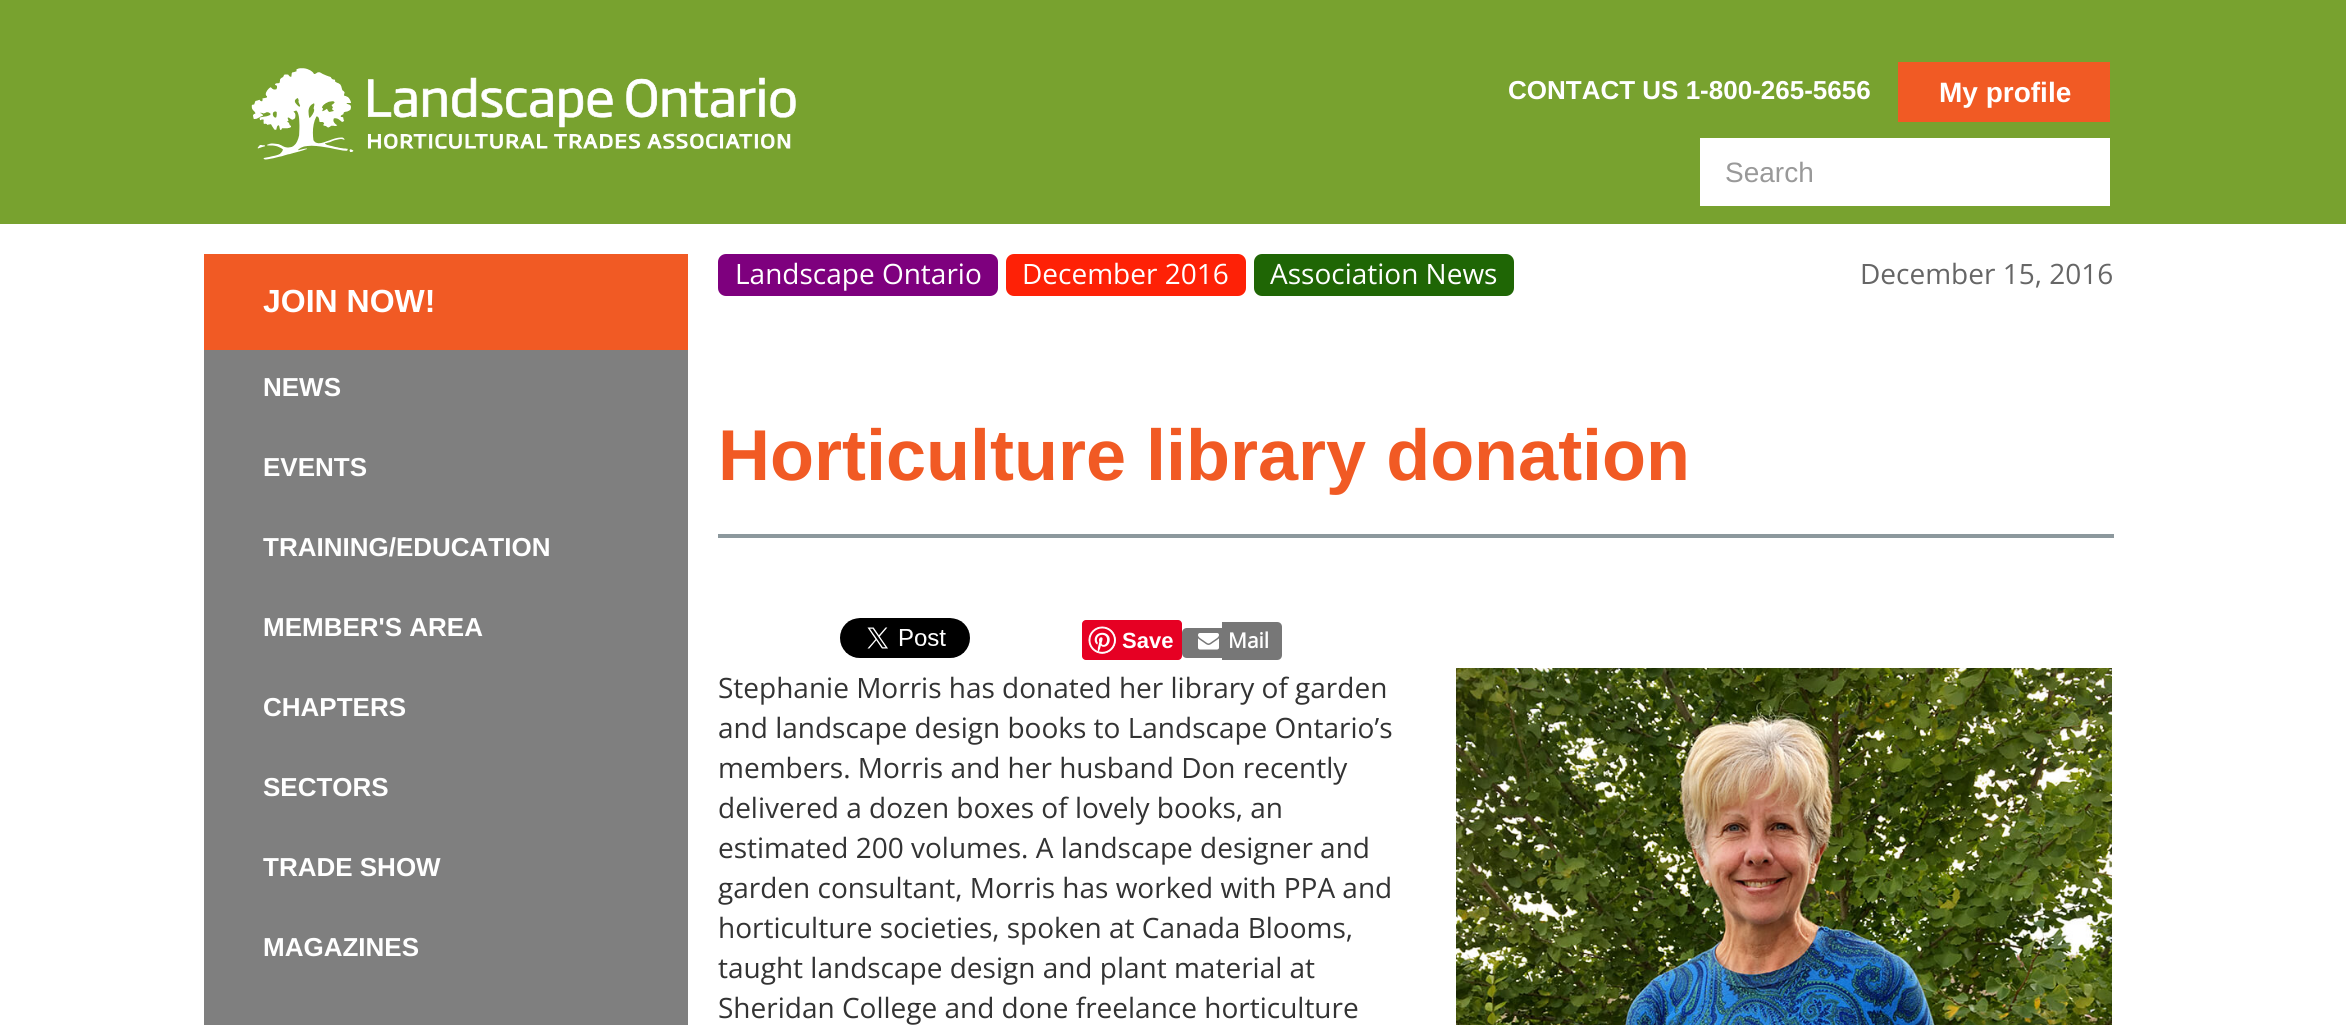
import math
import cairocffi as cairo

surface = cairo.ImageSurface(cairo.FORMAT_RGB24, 2346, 1025)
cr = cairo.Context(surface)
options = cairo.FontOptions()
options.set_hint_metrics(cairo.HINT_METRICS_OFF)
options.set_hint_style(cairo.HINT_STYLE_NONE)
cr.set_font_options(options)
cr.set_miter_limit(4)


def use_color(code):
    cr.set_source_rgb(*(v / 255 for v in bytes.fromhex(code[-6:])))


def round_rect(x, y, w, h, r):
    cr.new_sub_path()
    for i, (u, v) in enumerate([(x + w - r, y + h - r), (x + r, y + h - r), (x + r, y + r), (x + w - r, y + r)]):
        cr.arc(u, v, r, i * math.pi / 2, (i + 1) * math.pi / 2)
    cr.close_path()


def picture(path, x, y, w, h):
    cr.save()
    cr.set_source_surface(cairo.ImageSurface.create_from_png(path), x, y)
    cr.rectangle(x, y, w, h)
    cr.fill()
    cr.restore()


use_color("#ffffff")
cr.paint()
use_color("#78a22f")
cr.rectangle(0, 0, 2346, 224)
cr.fill()
picture("img1.png", 251, 68, 545, 92)
cr.select_font_face("Liberation Sans", cairo.FONT_SLANT_NORMAL, cairo.FONT_WEIGHT_BOLD)
cr.set_font_size(26)
use_color("#ffffff")
cr.move_to(1508, 99)
cr.show_text("CONTACT US 1-800-265-5656")
use_color("#f15a24")
cr.rectangle(1898, 62, 212, 60)
cr.fill()
cr.set_font_size(28)
use_color("#ffffff")
cr.move_to(1939, 102)
cr.show_text("My profile")
cr.rectangle(1700, 138, 410, 68)
cr.fill()
cr.select_font_face("Liberation Sans")
use_color("#999999")
cr.move_to(1725, 182)
cr.show_text("Search")
use_color("#f15a24")
cr.rectangle(204, 254, 484, 96)
cr.fill()
cr.select_font_face("Liberation Sans", cairo.FONT_SLANT_NORMAL, cairo.FONT_WEIGHT_BOLD)
cr.set_font_size(32)
use_color("#ffffff")
cr.move_to(263, 312)
cr.show_text("JOIN NOW!")
use_color("#7f7f7f")
cr.rectangle(204, 350, 484, 675)
cr.fill()
cr.set_font_size(26)
use_color("#ffffff")
cr.move_to(263, 396)
cr.show_text("NEWS")
cr.move_to(263, 476)
cr.show_text("EVENTS")
cr.move_to(263, 556)
cr.show_text("TRAINING/EDUCATION")
cr.move_to(263, 636)
cr.show_text("MEMBER'S AREA")
cr.move_to(263, 716)
cr.show_text("CHAPTERS")
cr.move_to(263, 796)
cr.show_text("SECTORS")
cr.move_to(263, 876)
cr.show_text("TRADE SHOW")
cr.move_to(263, 956)
cr.show_text("MAGAZINES")
use_color("#7e007e")
round_rect(718, 254, 280, 42, 8)
cr.fill()
cr.select_font_face("Open Sans")
cr.set_font_size(28)
use_color("#ffffff")
cr.move_to(735, 284)
cr.show_text("Landscape Ontario")
use_color("#fe2106")
round_rect(1006, 254, 240, 42, 8)
cr.fill()
use_color("#ffffff")
cr.move_to(1022, 284)
cr.show_text("December 2016")
use_color("#1f6605")
round_rect(1254, 254, 260, 42, 8)
cr.fill()
use_color("#ffffff")
cr.move_to(1270, 284)
cr.show_text("Association News")
use_color("#666666")
cr.move_to(1860, 284)
cr.show_text("December 15, 2016")
use_color("#8c989d")
cr.rectangle(718, 534, 1396, 4)
cr.fill()
cr.select_font_face("Liberation Sans", cairo.FONT_SLANT_NORMAL, cairo.FONT_WEIGHT_BOLD)
cr.set_font_size(72)
use_color("#f15a24")
cr.move_to(718, 480)
cr.show_text("Horticulture library donation")
picture("img2.png", 840, 618, 130, 40)
use_color("#e60023")
round_rect(1082, 620, 100, 40, 4)
cr.fill()
picture("img3.png", 1088, 626, 28, 28)
cr.set_font_size(22)
use_color("#ffffff")
cr.move_to(1122, 648)
cr.show_text("Save")
use_color("#777777")
cr.new_path()
cr.move_to(1187, 628)
cr.line_to(1222, 628)
cr.line_to(1222, 658)
cr.line_to(1187, 658)
cr.curve_to(1184, 658, 1182, 656, 1182, 653)
cr.line_to(1182, 633)
cr.curve_to(1182, 630, 1184, 628, 1187, 628)
cr.close_path()
cr.fill()
cr.new_path()
cr.move_to(1222, 622)
cr.line_to(1277, 622)
cr.curve_to(1280, 622, 1282, 624, 1282, 627)
cr.line_to(1282, 655)
cr.curve_to(1282, 658, 1280, 660, 1277, 660)
cr.line_to(1222, 660)
cr.close_path()
cr.fill()
picture("img4.png", 1198, 633, 21, 17)
cr.select_font_face("Open Sans", cairo.FONT_SLANT_NORMAL, cairo.FONT_WEIGHT_BOLD)
cr.set_font_size(21)
use_color("#ffffff")
cr.move_to(1228, 648)
cr.show_text("Mail")
cr.select_font_face("Open Sans")
cr.set_font_size(28)
use_color("#333333")
cr.move_to(718, 698)
cr.show_text("Stephanie Morris has donated her library of garden")
picture("img5.png", 1456, 668, 656, 357)
cr.move_to(718, 738)
cr.show_text("and landscape design books to Landscape Ontario’s")
cr.move_to(718, 778)
cr.show_text("members. Morris and her husband Don recently")
cr.move_to(718, 818)
cr.show_text("delivered a dozen boxes of lovely books, an")
cr.move_to(718, 858)
cr.show_text("estimated 200 volumes. A landscape designer and")
cr.move_to(718, 898)
cr.show_text("garden consultant, Morris has worked with PPA and")
cr.move_to(718, 938)
cr.show_text("horticulture societies, spoken at Canada Blooms,")
cr.move_to(718, 978)
cr.show_text("taught landscape design and plant material at")
cr.move_to(718, 1018)
cr.show_text("Sheridan College and done freelance horticulture")
surface.write_to_png("result.png")
